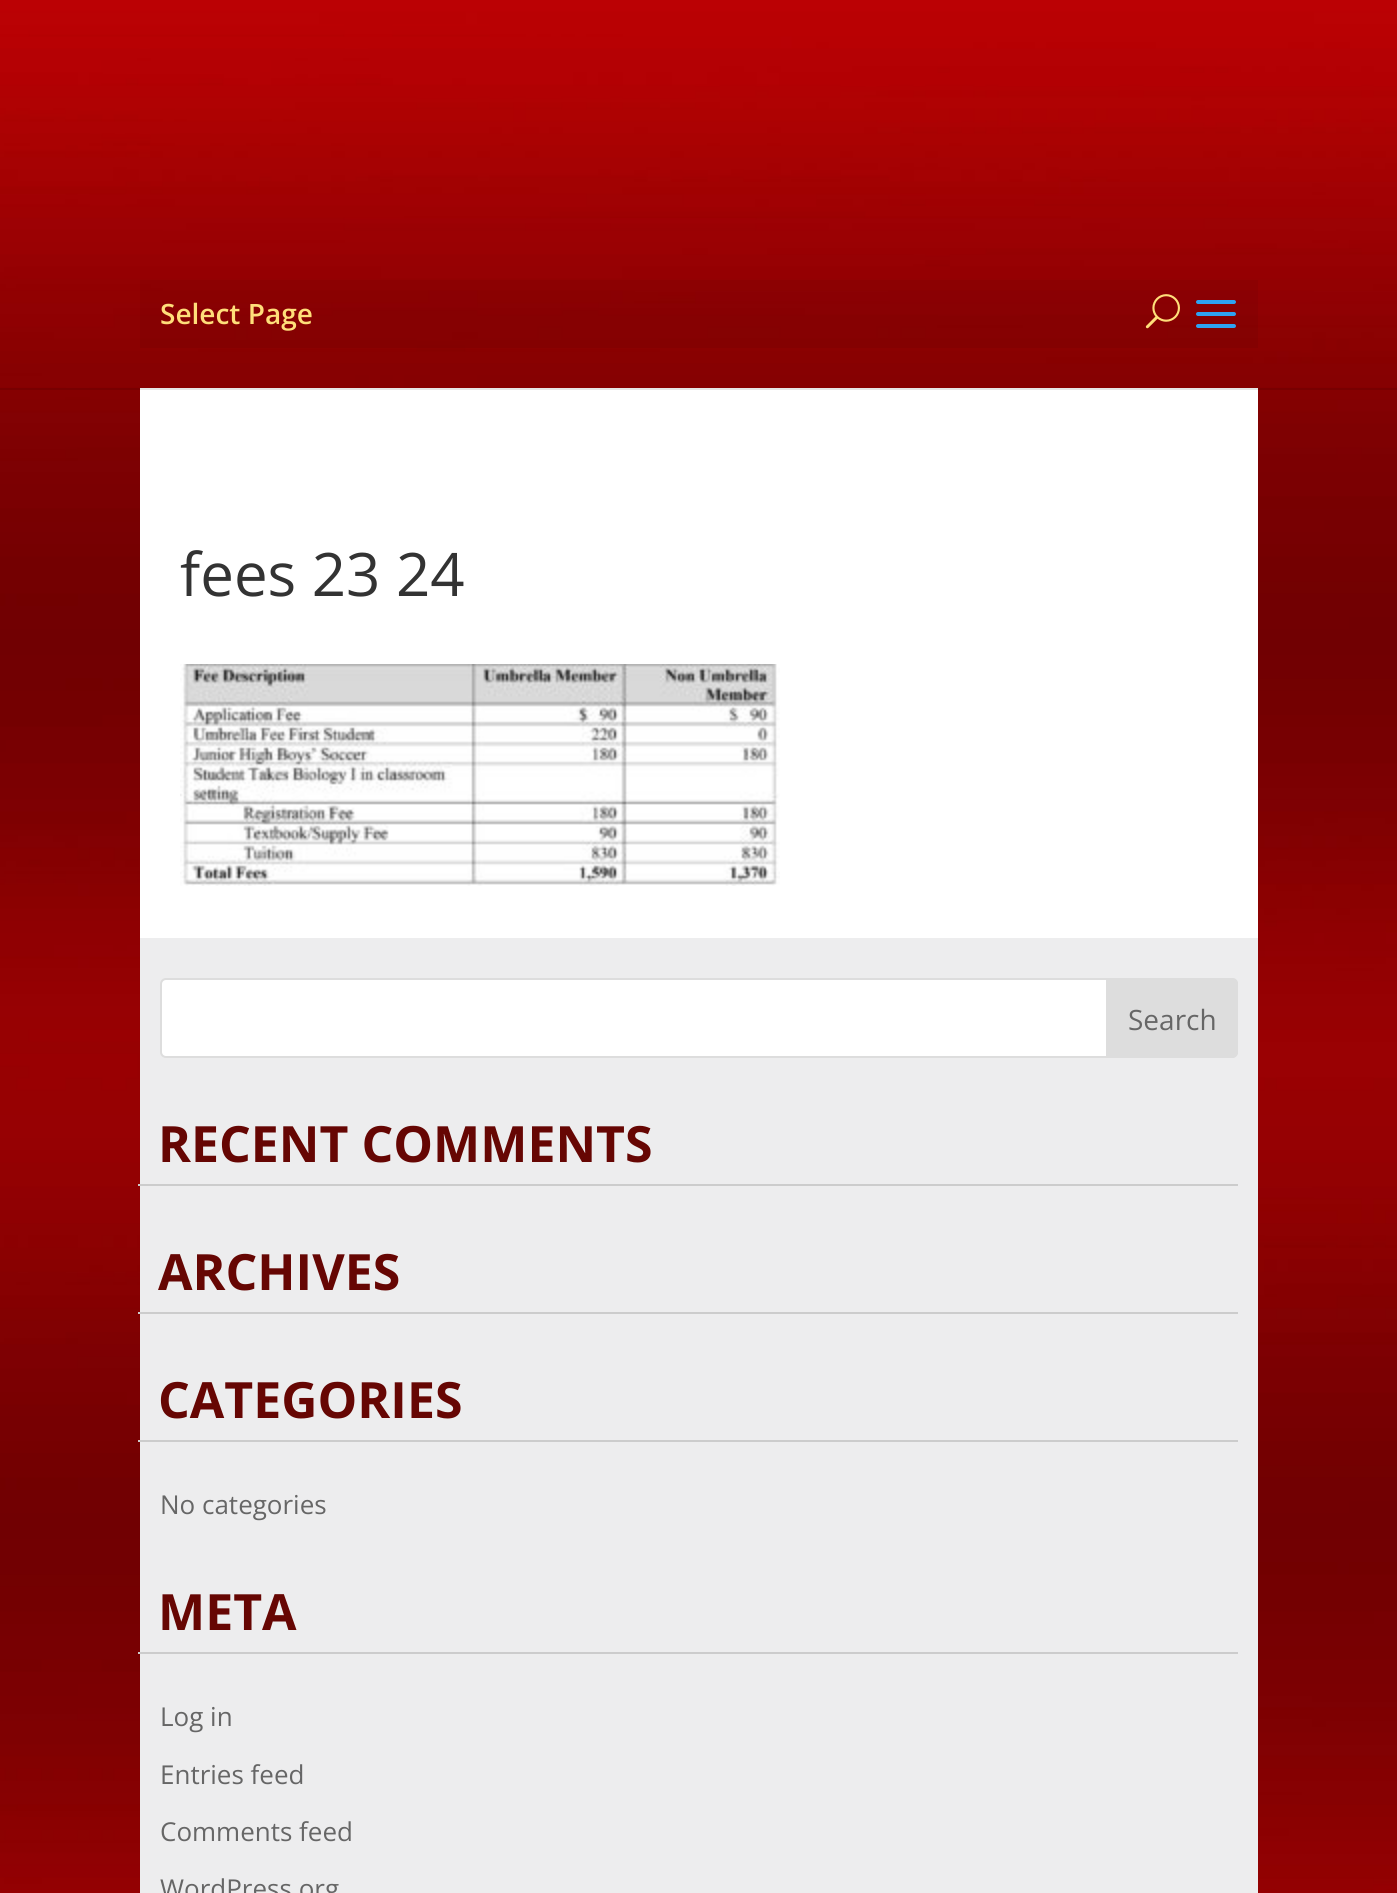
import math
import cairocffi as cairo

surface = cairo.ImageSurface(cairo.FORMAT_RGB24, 1397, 1893)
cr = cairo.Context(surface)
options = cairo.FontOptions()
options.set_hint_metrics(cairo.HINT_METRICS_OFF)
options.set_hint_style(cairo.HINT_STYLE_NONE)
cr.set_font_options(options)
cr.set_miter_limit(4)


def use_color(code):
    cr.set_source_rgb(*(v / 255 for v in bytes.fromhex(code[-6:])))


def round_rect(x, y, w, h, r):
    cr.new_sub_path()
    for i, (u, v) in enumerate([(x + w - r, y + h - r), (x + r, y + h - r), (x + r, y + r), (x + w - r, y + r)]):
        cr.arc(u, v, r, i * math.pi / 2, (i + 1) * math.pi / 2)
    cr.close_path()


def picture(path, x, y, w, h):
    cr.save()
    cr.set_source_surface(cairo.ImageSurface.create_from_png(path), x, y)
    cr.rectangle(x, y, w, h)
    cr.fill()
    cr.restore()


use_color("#ffffff")
cr.paint()
picture("img1.png", 0, 0, 1397, 1893)
use_color("#ffffff")
cr.rectangle(140, 388, 1118, 550)
cr.fill()
cr.set_source_rgba(0, 0, 0, 0.1)
cr.rectangle(0, 388, 1397, 2)
cr.fill()
cr.set_source_rgba(0, 0, 0, 0.05)
cr.rectangle(140, 280, 1118, 68)
cr.fill()
cr.select_font_face("Open Sans SemiBold")
cr.set_font_size(28)
use_color("#ffde7a")
cr.move_to(160, 324)
cr.show_text("Select Page")
picture("img2.png", 1196, 300, 40, 28)
picture("img3.png", 1145, 294, 35, 35)
cr.select_font_face("Open Sans")
cr.set_font_size(60)
use_color("#333333")
cr.move_to(180, 596)
cr.show_text("fees 23 24")
picture("img4.png", 180, 664, 600, 222)
use_color("#ededee")
cr.rectangle(140, 938, 1118, 955)
cr.fill()
use_color("#ffffff")
round_rect(161, 979, 1076, 78, 5)
cr.fill_preserve()
use_color("#dddddd")
cr.stroke()
cr.new_path()
cr.move_to(1107, 979)
cr.line_to(1232, 979)
cr.curve_to(1235, 979, 1237, 981, 1237, 984)
cr.line_to(1237, 1052)
cr.curve_to(1237, 1055, 1235, 1057, 1232, 1057)
cr.line_to(1107, 1057)
cr.close_path()
cr.fill_preserve()
cr.stroke()
cr.set_font_size(28)
use_color("#666666")
cr.move_to(1128, 1030)
cr.show_text("Search")
use_color("#cccccc")
cr.rectangle(138, 1184, 1100, 2)
cr.fill()
cr.select_font_face("Open Sans", cairo.FONT_SLANT_NORMAL, cairo.FONT_WEIGHT_BOLD)
cr.set_font_size(50)
use_color("#660603")
cr.move_to(158, 1162)
cr.show_text("RECENT COMMENTS")
use_color("#cccccc")
cr.rectangle(138, 1312, 1100, 2)
cr.fill()
use_color("#660603")
cr.move_to(158, 1290)
cr.show_text("ARCHIVES")
use_color("#cccccc")
cr.rectangle(138, 1440, 1100, 2)
cr.fill()
use_color("#660603")
cr.move_to(158, 1418)
cr.show_text("CATEGORIES")
cr.select_font_face("Open Sans")
cr.set_font_size(26)
use_color("#666666")
cr.move_to(160, 1514)
cr.show_text("No categories")
use_color("#cccccc")
cr.rectangle(138, 1652, 1100, 2)
cr.fill()
cr.select_font_face("Open Sans", cairo.FONT_SLANT_NORMAL, cairo.FONT_WEIGHT_BOLD)
cr.set_font_size(50)
use_color("#660603")
cr.move_to(158, 1630)
cr.show_text("META")
cr.select_font_face("Open Sans")
cr.set_font_size(26)
use_color("#666666")
cr.move_to(160, 1726)
cr.show_text("Log in")
cr.move_to(160, 1784)
cr.show_text("Entries feed")
cr.move_to(160, 1841)
cr.show_text("Comments feed")
cr.move_to(160, 1898)
cr.show_text("WordPress.org")
surface.write_to_png("result.png")
